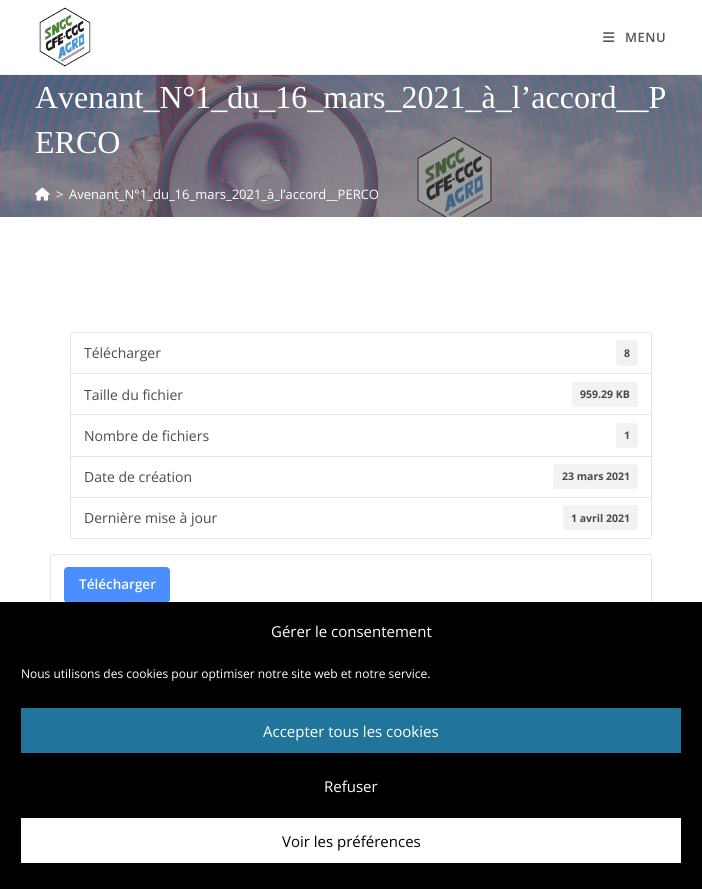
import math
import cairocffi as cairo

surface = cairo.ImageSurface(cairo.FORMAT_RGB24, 702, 889)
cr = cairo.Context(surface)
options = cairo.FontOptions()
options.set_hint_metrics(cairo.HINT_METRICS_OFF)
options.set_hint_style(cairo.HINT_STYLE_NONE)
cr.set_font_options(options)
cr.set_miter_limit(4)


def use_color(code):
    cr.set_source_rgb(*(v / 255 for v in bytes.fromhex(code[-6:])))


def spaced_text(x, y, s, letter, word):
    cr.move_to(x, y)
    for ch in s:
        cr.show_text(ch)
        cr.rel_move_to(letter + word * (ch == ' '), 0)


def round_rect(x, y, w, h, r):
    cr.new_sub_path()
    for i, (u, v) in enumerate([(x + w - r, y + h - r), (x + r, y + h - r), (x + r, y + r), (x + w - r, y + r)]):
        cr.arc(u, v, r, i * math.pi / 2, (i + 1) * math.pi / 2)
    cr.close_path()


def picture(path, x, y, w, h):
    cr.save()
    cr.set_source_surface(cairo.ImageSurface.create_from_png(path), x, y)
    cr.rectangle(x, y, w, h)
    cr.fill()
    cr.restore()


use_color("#ffffff")
cr.paint()
use_color("#f1f1f1")
cr.rectangle(0, 74, 702, 1)
cr.fill()
picture("img1.png", 39, 7, 52, 60)
picture("img2.png", 603, 32, 12, 10)
cr.select_font_face("Open Sans SemiBold")
cr.set_font_size(13)
use_color("#555555")
spaced_text(625, 42, "MENU", 0.5, 0)
picture("img3.png", 0, 75, 702, 142)
cr.select_font_face("Liberation Serif")
cr.set_font_size(32)
use_color("#ffffff")
cr.move_to(35, 108)
cr.show_text("Avenant_N°1_du_16_mars_2021_à_l’accord__P")
cr.move_to(35, 153)
cr.show_text("ERCO")
picture("img4.png", 35, 187, 15, 14)
cr.select_font_face("Open Sans")
cr.set_font_size(13)
cr.move_to(56, 199)
cr.show_text(">")
cr.move_to(69, 199)
cr.show_text("Avenant_N°1_du_16_mars_2021_à_l’accord__PERCO")
cr.new_path()
cr.move_to(72.5, 332.5)
cr.line_to(649.5, 332.5)
cr.curve_to(650.5, 332.5, 651.5, 333.5, 651.5, 334.5)
cr.line_to(651.5, 373.5)
cr.line_to(70.5, 373.5)
cr.line_to(70.5, 334.5)
cr.curve_to(70.5, 333.5, 71.5, 332.5, 72.5, 332.5)
cr.close_path()
use_color("#e5e5e5")
cr.set_line_width(1)
cr.stroke()
cr.set_font_size(14)
use_color("#4a4a4a")
cr.move_to(84, 358)
cr.show_text("Télécharger")
use_color("#f2f2f2")
round_rect(616, 340, 22, 26, 3)
cr.fill()
cr.select_font_face("Open Sans", cairo.FONT_SLANT_NORMAL, cairo.FONT_WEIGHT_BOLD)
cr.set_font_size(10.5)
use_color("#4a4a4a")
cr.move_to(624, 357)
cr.show_text("8")
cr.rectangle(70.5, 373.5, 581, 41)
use_color("#e5e5e5")
cr.stroke()
cr.select_font_face("Open Sans")
cr.set_font_size(14)
use_color("#4a4a4a")
cr.move_to(84, 400)
cr.show_text("Taille du fichier")
use_color("#f2f2f2")
round_rect(572, 382, 66, 25, 3)
cr.fill()
cr.select_font_face("Open Sans", cairo.FONT_SLANT_NORMAL, cairo.FONT_WEIGHT_BOLD)
cr.set_font_size(10.5)
use_color("#4a4a4a")
cr.move_to(580, 398)
cr.show_text("959.29 KB")
cr.rectangle(70.5, 414.5, 581, 42)
use_color("#e5e5e5")
cr.stroke()
cr.select_font_face("Open Sans")
cr.set_font_size(14)
use_color("#4a4a4a")
cr.move_to(84, 441)
cr.show_text("Nombre de fichiers")
use_color("#f2f2f2")
round_rect(616, 423, 22, 25, 3)
cr.fill()
cr.select_font_face("Open Sans", cairo.FONT_SLANT_NORMAL, cairo.FONT_WEIGHT_BOLD)
cr.set_font_size(10.5)
use_color("#4a4a4a")
cr.move_to(624, 439)
cr.show_text("1")
cr.rectangle(70.5, 456.5, 581, 41)
use_color("#e5e5e5")
cr.stroke()
cr.select_font_face("Open Sans")
cr.set_font_size(14)
use_color("#4a4a4a")
cr.move_to(84, 482)
cr.show_text("Date de création")
use_color("#f2f2f2")
round_rect(553, 464, 85, 25, 3)
cr.fill()
cr.select_font_face("Open Sans", cairo.FONT_SLANT_NORMAL, cairo.FONT_WEIGHT_BOLD)
cr.set_font_size(10.5)
use_color("#4a4a4a")
cr.move_to(562, 480)
cr.show_text("23 mars 2021")
use_color("#ffffff")
cr.new_path()
cr.move_to(70.5, 497.5)
cr.line_to(651.5, 497.5)
cr.line_to(651.5, 536.5)
cr.curve_to(651.5, 537.5, 650.5, 538.5, 649.5, 538.5)
cr.line_to(72.5, 538.5)
cr.curve_to(71.5, 538.5, 70.5, 537.5, 70.5, 536.5)
cr.close_path()
cr.fill_preserve()
use_color("#e5e5e5")
cr.stroke()
cr.select_font_face("Open Sans")
cr.set_font_size(14)
use_color("#4a4a4a")
cr.move_to(84, 523)
cr.show_text("Dernière mise à jour")
use_color("#f2f2f2")
round_rect(563, 505, 75, 25, 3)
cr.fill()
cr.select_font_face("Open Sans", cairo.FONT_SLANT_NORMAL, cairo.FONT_WEIGHT_BOLD)
cr.set_font_size(10.5)
use_color("#4a4a4a")
cr.move_to(571, 522)
cr.show_text("1 avril 2021")
round_rect(50.5, 554.5, 601, 62, 2.5)
use_color("#e5e5e5")
cr.stroke()
use_color("#4a8eff")
round_rect(64, 567, 106, 36, 4)
cr.fill()
cr.select_font_face("Open Sans SemiBold")
cr.set_font_size(13.5)
use_color("#ffffff")
cr.move_to(79, 589)
cr.show_text("Télécharger")
use_color("#000000")
cr.rectangle(0, 602, 702, 287)
cr.fill()
cr.select_font_face("Open Sans")
cr.set_font_size(15)
use_color("#ffffff")
cr.move_to(271, 637)
cr.show_text("Gérer le consentement")
cr.set_font_size(12)
cr.move_to(21, 678)
cr.show_text("Nous utilisons des cookies pour optimiser notre site web et notre service.")
use_color("#21759b")
cr.rectangle(21, 708, 660, 45)
cr.fill()
cr.set_font_size(15)
use_color("#ffffff")
cr.move_to(263, 737)
cr.show_text("Accepter tous les cookies")
cr.move_to(324, 792)
cr.show_text("Refuser")
cr.rectangle(21, 818, 660, 45)
cr.fill()
use_color("#000000")
cr.move_to(282, 847)
cr.show_text("Voir les préférences")
surface.write_to_png("result.png")
